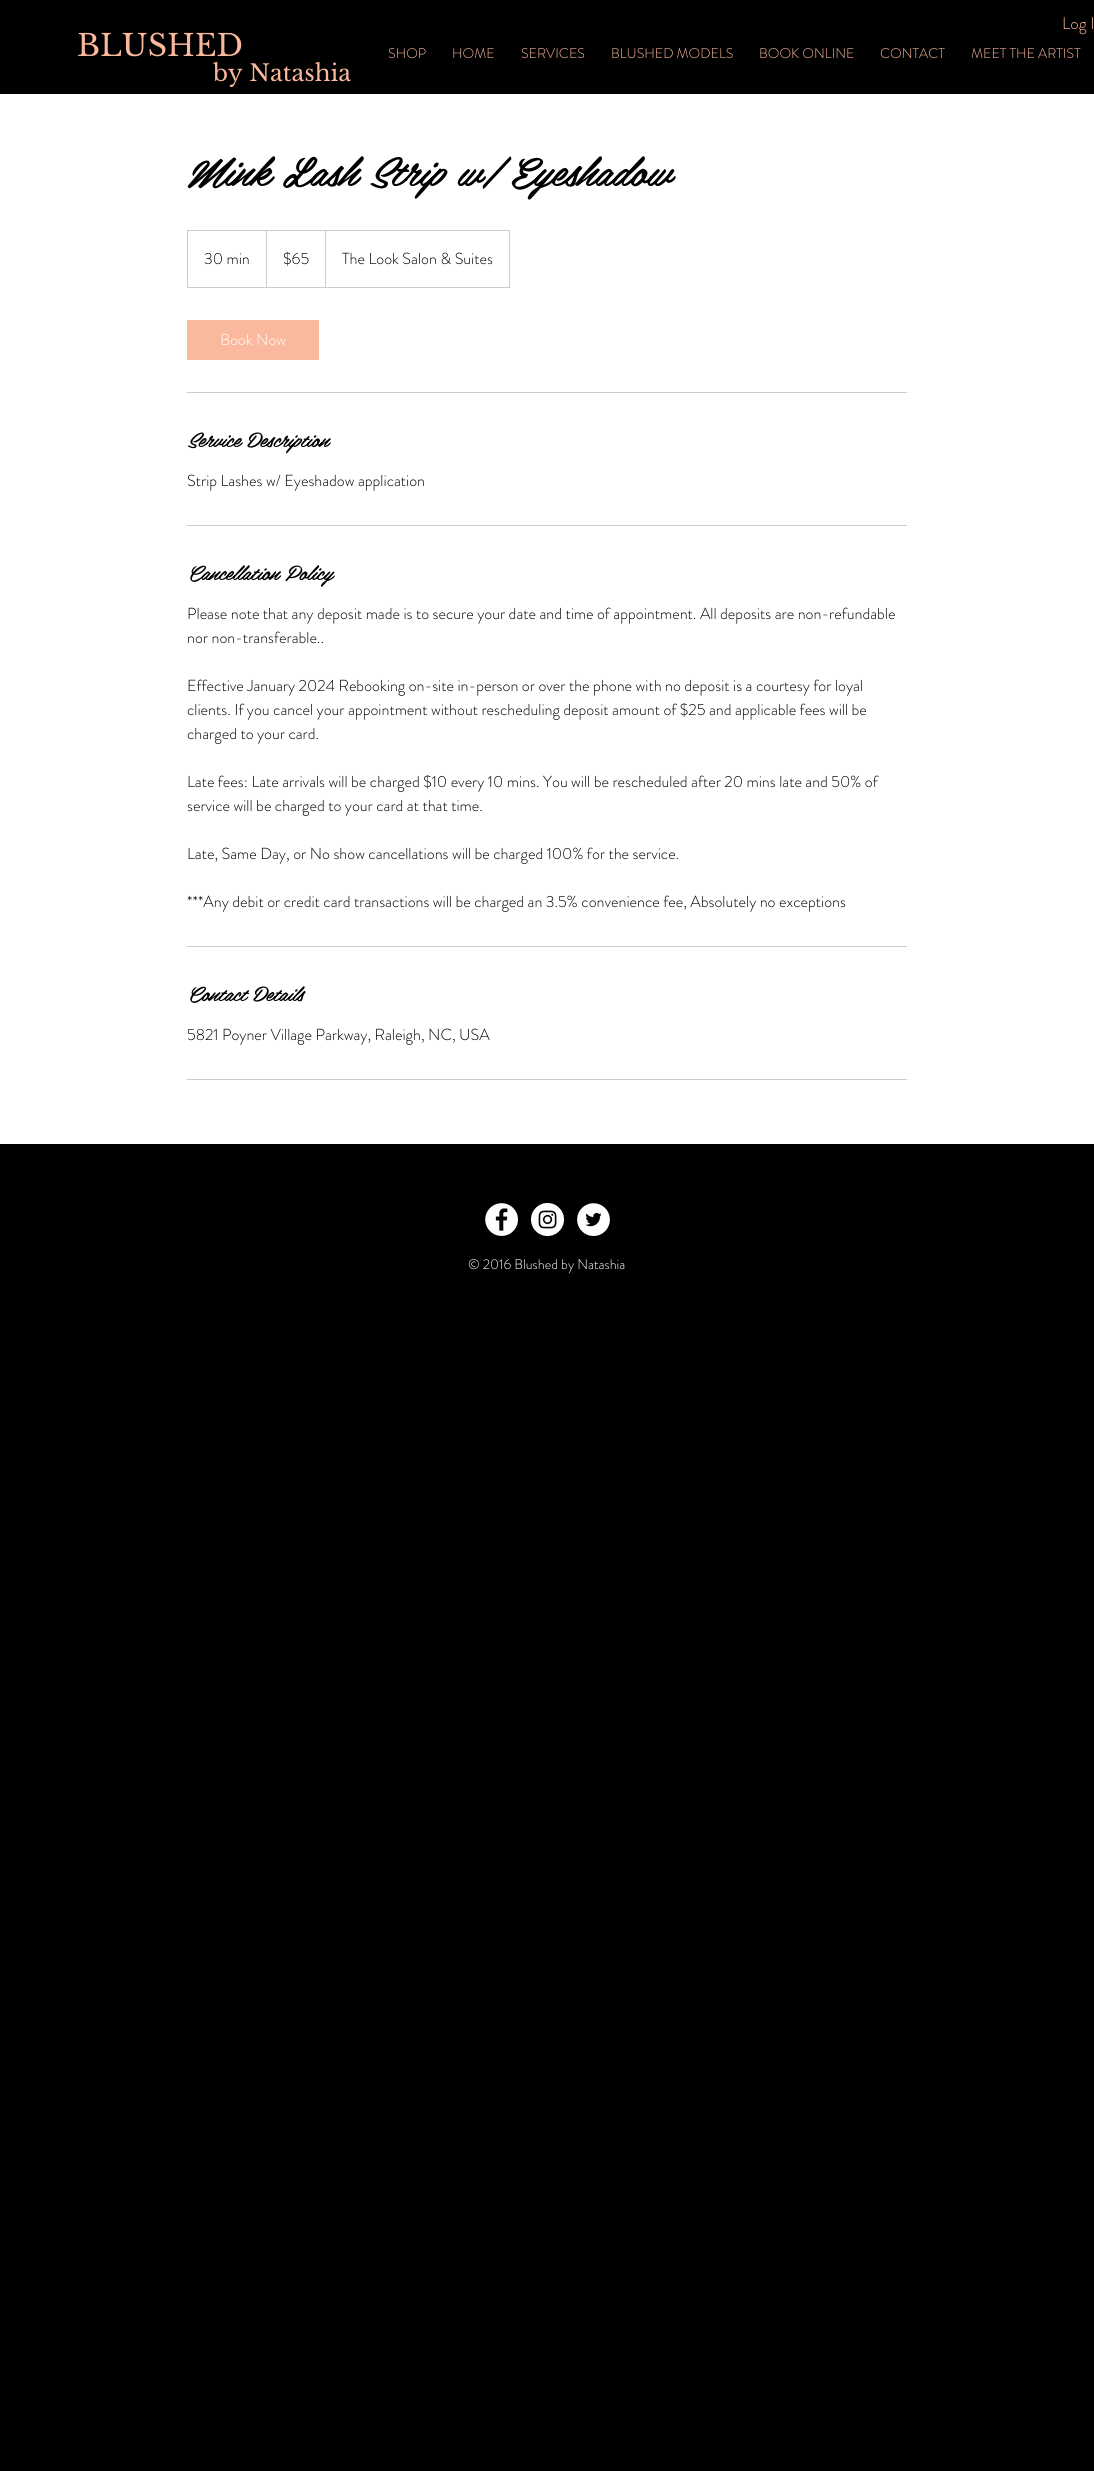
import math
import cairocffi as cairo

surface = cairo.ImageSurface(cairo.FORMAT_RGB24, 1094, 2471)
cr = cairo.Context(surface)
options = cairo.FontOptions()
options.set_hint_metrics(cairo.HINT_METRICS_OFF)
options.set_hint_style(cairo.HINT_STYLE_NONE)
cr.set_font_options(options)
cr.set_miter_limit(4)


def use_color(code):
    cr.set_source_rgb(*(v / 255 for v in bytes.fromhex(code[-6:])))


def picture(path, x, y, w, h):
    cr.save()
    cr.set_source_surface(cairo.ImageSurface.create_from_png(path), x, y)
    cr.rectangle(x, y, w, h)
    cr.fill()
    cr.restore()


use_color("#000000")
cr.paint()
cr.select_font_face("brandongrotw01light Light")
cr.set_font_size(17)
use_color("#fab89d")
cr.move_to(1062, 29)
cr.show_text("Log I")
cr.select_font_face("Libre Baskerville")
cr.set_font_size(30)
cr.move_to(77, 56)
cr.show_text("BLUSHED")
cr.select_font_face("brandongrotw01light Light")
cr.set_font_size(14)
cr.move_to(388, 58)
cr.show_text("SHOP")
cr.move_to(452, 58)
cr.show_text("HOME")
cr.move_to(521, 58)
cr.show_text("SERVICES")
cr.move_to(611, 58)
cr.show_text("BLUSHED MODELS")
cr.move_to(759, 58)
cr.show_text("BOOK ONLINE")
cr.move_to(880, 58)
cr.show_text("CONTACT")
cr.move_to(971, 58)
cr.show_text("MEET THE ARTIST")
cr.select_font_face("Libre Baskerville")
cr.set_font_size(23)
cr.move_to(213, 81)
cr.show_text("by Natashia")
use_color("#ffffff")
cr.rectangle(0, 94, 1094, 1050)
cr.fill()
cr.select_font_face("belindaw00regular", cairo.FONT_SLANT_ITALIC)
cr.set_font_size(40)
use_color("#000000")
cr.move_to(187, 186)
cr.show_text("Mink Lash Strip w/ Eyeshadow")
cr.rectangle(187.5, 230.5, 322, 57)
use_color("#cccccc")
cr.set_line_width(1)
cr.stroke()
cr.select_font_face("brandongrotw01light Light")
cr.set_font_size(16)
use_color("#000000")
cr.move_to(204, 264)
cr.show_text("30 min")
use_color("#cccccc")
cr.new_path()
cr.move_to(266, 287)
cr.line_to(266, 230)
cr.line_to(267, 231)
cr.line_to(267, 287)
cr.close_path()
cr.fill()
use_color("#000000")
cr.move_to(283, 264)
cr.show_text("$65")
use_color("#cccccc")
cr.new_path()
cr.move_to(325, 287)
cr.line_to(325, 230)
cr.line_to(326, 231)
cr.line_to(326, 287)
cr.close_path()
cr.fill()
use_color("#000000")
cr.move_to(342, 264)
cr.show_text("The Look Salon & Suites")
use_color("#fab89d")
cr.rectangle(187, 320, 132, 40)
cr.fill()
use_color("#ffffff")
cr.move_to(220, 345)
cr.show_text("Book Now")
use_color("#cccccc")
cr.rectangle(187, 392, 720, 1)
cr.fill()
cr.select_font_face("belindaw00regular", cairo.FONT_SLANT_ITALIC)
cr.set_font_size(20)
use_color("#000000")
cr.move_to(187, 447)
cr.show_text("Service Description")
cr.select_font_face("brandongrotw01light Light")
cr.set_font_size(16)
cr.move_to(187, 486)
cr.show_text("Strip Lashes w/ Eyeshadow application")
use_color("#cccccc")
cr.rectangle(187, 525, 720, 1)
cr.fill()
cr.select_font_face("belindaw00regular", cairo.FONT_SLANT_ITALIC)
cr.set_font_size(20)
use_color("#000000")
cr.move_to(187, 580)
cr.show_text("Cancellation Policy")
cr.select_font_face("brandongrotw01light Light")
cr.set_font_size(16)
cr.move_to(187, 619)
cr.show_text("Please note that any deposit made is to secure your date and time of appointment. All deposits are non-refundable")
cr.move_to(187, 643)
cr.show_text("nor non-transferable..")
cr.move_to(187, 691)
cr.show_text("Effective January 2024 Rebooking on-site in-person or over the phone with no deposit is a courtesy for loyal")
cr.move_to(187, 715)
cr.show_text("clients. If you cancel your appointment without rescheduling deposit amount of $25 and applicable fees will be")
cr.move_to(187, 739)
cr.show_text("charged to your card.")
cr.move_to(187, 787)
cr.show_text("Late fees: Late arrivals will be charged $10 every 10 mins. You will be rescheduled after 20 mins late and 50% of")
cr.move_to(187, 811)
cr.show_text("service will be charged to your card at that time.")
cr.move_to(187, 859)
cr.show_text("Late, Same Day, or No show cancellations will be charged 100% for the service.")
cr.move_to(187, 907)
cr.show_text("***Any debit or credit card transactions will be charged an 3.5% convenience fee, Absolutely no exceptions")
use_color("#cccccc")
cr.rectangle(187, 946, 720, 1)
cr.fill()
cr.select_font_face("belindaw00regular", cairo.FONT_SLANT_ITALIC)
cr.set_font_size(20)
use_color("#000000")
cr.move_to(187, 1001)
cr.show_text("Contact Details")
cr.select_font_face("brandongrotw01light Light")
cr.set_font_size(16)
cr.move_to(187, 1040)
cr.show_text("5821 Poyner Village Parkway, Raleigh, NC, USA")
use_color("#cccccc")
cr.rectangle(187, 1079, 720, 1)
cr.fill()
picture("img1.png", 485, 1203, 33, 33)
picture("img2.png", 531, 1203, 33, 33)
picture("img3.png", 577, 1203, 33, 33)
cr.set_font_size(14)
use_color("#ffffff")
cr.move_to(468, 1269)
cr.show_text("© 2016 Blushed by Natashia")
surface.write_to_png("result.png")
